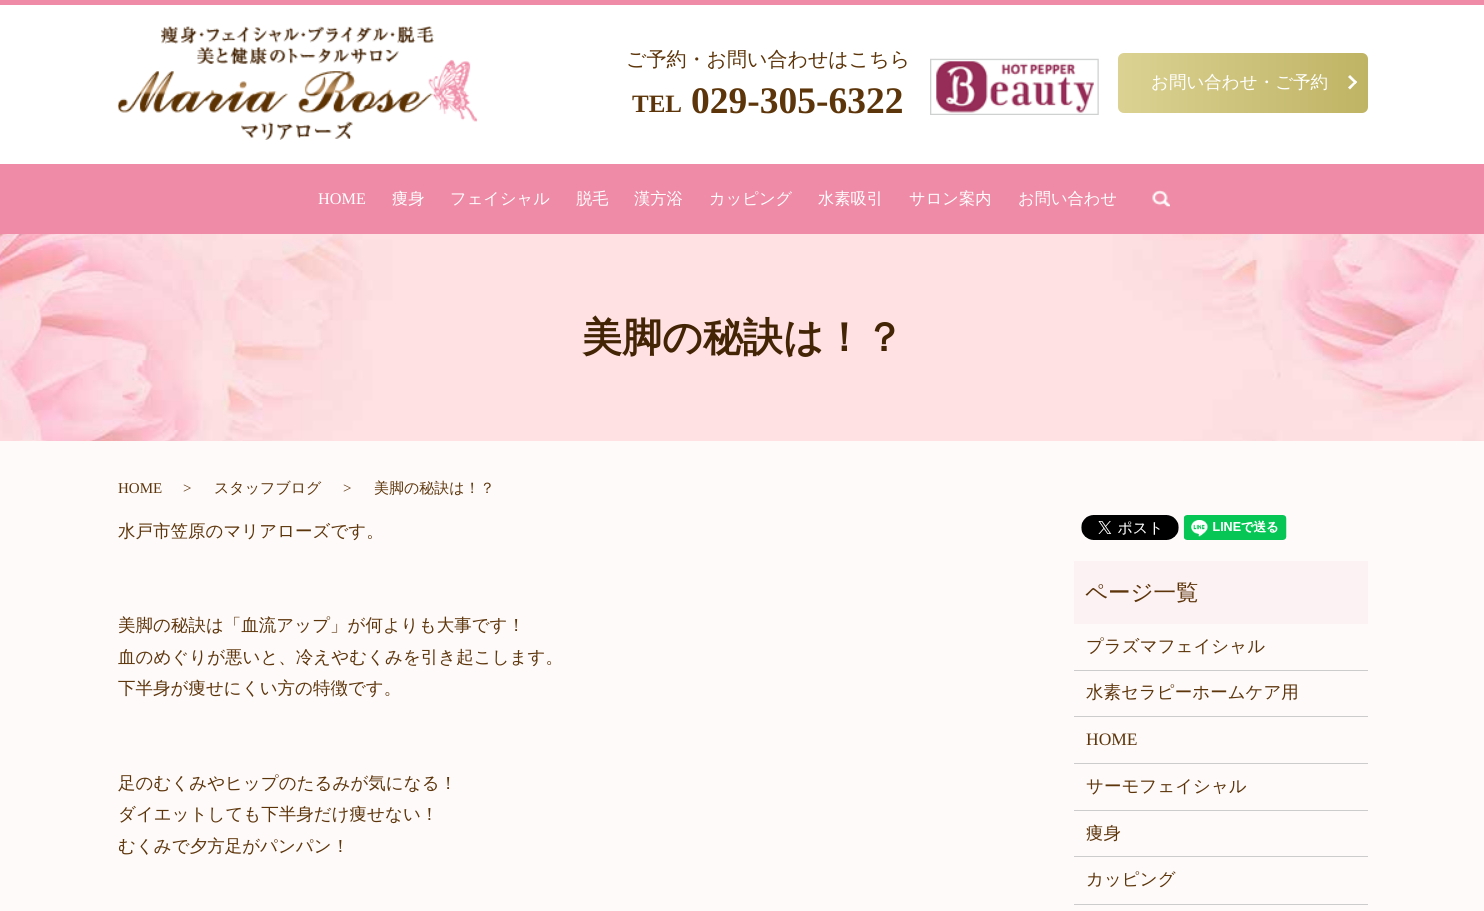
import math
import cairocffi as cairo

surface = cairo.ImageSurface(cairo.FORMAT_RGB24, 1484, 911)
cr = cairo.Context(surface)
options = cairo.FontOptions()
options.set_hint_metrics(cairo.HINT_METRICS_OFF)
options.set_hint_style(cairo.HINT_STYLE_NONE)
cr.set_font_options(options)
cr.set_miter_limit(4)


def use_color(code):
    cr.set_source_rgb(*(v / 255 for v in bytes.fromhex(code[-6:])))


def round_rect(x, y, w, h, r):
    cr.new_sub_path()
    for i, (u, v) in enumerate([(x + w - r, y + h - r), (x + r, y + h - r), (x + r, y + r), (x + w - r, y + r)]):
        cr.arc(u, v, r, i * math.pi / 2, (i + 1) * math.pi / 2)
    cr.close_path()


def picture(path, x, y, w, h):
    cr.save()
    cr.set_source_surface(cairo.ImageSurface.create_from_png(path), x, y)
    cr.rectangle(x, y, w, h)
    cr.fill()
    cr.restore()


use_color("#fefafa")
cr.paint()
use_color("#ffffff")
cr.rectangle(0, 5, 1484, 159)
cr.fill()
use_color("#ef8ba6")
cr.rectangle(0, 0, 1484, 5)
cr.fill()
picture("img1.png", 117, 26, 361, 114)
cr.select_font_face("WenQuanYi Zen Hei Medium")
cr.set_font_size(20)
use_color("#5d350a")
cr.move_to(626, 66)
cr.show_text("ご予約・お問い合わせはこちら")
cr.select_font_face("Liberation Serif", cairo.FONT_SLANT_NORMAL, cairo.FONT_WEIGHT_BOLD)
cr.set_font_size(25)
cr.move_to(632, 112)
cr.show_text("TEL")
cr.set_font_size(37.5)
cr.move_to(691, 113)
cr.show_text("029-305-6322")
picture("img2.png", 930, 58, 169, 57)
gradient = cairo.LinearGradient(1118, 83, 1368, 83)
gradient.add_color_stop_rgba(0, 0.859, 0.824, 0.576, 1)
gradient.add_color_stop_rgba(1, 0.749, 0.702, 0.392, 1)
cr.set_source(gradient)
round_rect(1118, 53, 250, 60, 6)
cr.fill()
cr.select_font_face("WenQuanYi Zen Hei Medium")
cr.set_font_size(17.5)
use_color("#ffffff")
cr.move_to(1151, 88)
cr.show_text("お問い合わせ・ご予約")
cr.new_path()
cr.move_to(1350, 75)
cr.line_to(1357, 82)
cr.line_to(1355.5, 84)
cr.line_to(1348, 77)
cr.close_path()
cr.fill()
cr.new_path()
cr.move_to(1355.5, 80.5)
cr.line_to(1357, 82)
cr.line_to(1350, 89.5)
cr.line_to(1348, 87.5)
cr.close_path()
cr.fill()
use_color("#ef8ba6")
cr.rectangle(0, 164, 1484, 70)
cr.fill()
cr.select_font_face("Liberation Serif")
cr.set_font_size(16.25)
use_color("#ffffff")
cr.move_to(318, 204)
cr.show_text("HOME")
cr.select_font_face("WenQuanYi Zen Hei Medium")
cr.move_to(392, 204)
cr.show_text("痩身")
cr.move_to(450, 204)
cr.show_text("フェイシャル")
cr.move_to(576, 204)
cr.show_text("脱毛")
cr.move_to(634, 204)
cr.show_text("漢方浴")
cr.move_to(709, 204)
cr.show_text("カッピング")
cr.move_to(818, 204)
cr.show_text("水素吸引")
cr.move_to(909, 204)
cr.show_text("サロン案内")
cr.move_to(1018, 204)
cr.show_text("お問い合わせ")
picture("img3.png", 1152, 190, 18, 17)
picture("img4.png", 0, 234, 1484, 207)
cr.select_font_face("WenQuanYi Zen Hei", cairo.FONT_SLANT_NORMAL, cairo.FONT_WEIGHT_BOLD)
cr.set_font_size(40)
use_color("#432505")
cr.move_to(582, 351)
cr.show_text("美脚の秘訣は！？")
cr.select_font_face("Liberation Serif")
cr.set_font_size(15)
use_color("#5d350a")
cr.move_to(118, 493)
cr.show_text("HOME")
cr.move_to(183, 493)
cr.show_text(">")
cr.select_font_face("WenQuanYi Zen Hei Medium")
cr.move_to(214, 493)
cr.show_text("スタッフブログ")
cr.select_font_face("Liberation Serif")
cr.move_to(343, 493)
cr.show_text(">")
cr.select_font_face("WenQuanYi Zen Hei Medium")
cr.move_to(374, 493)
cr.show_text("美脚の秘訣は！？")
cr.set_font_size(17.5)
cr.move_to(118, 537)
cr.show_text("水戸市笠原のマリアローズです。")
cr.move_to(118, 631)
cr.show_text("美脚の秘訣は「血流アップ」が何よりも大事です！")
cr.move_to(118, 663)
cr.show_text("血のめぐりが悪いと、冷えやむくみを引き起こします。")
cr.move_to(118, 694)
cr.show_text("下半身が痩せにくい方の特徴です。")
cr.move_to(118, 789)
cr.show_text("足のむくみやヒップのたるみが気になる！")
cr.move_to(118, 820)
cr.show_text("ダイエットしても下半身だけ痩せない！")
cr.move_to(118, 852)
cr.show_text("むくみで夕方足がパンパン！")
picture("img5.png", 1081, 515, 98, 25)
picture("img6.png", 1183, 515, 104, 25)
use_color("#fcf1f3")
cr.rectangle(1074, 561, 294, 63)
cr.fill()
cr.set_font_size(22.5)
use_color("#5d350a")
cr.move_to(1085, 600)
cr.show_text("ページ一覧")
use_color("#cccccc")
cr.rectangle(1074, 670, 294, 1)
cr.fill()
cr.set_font_size(17.5)
use_color("#5d350a")
cr.move_to(1086, 652)
cr.show_text("プラズマフェイシャル")
use_color("#cccccc")
cr.rectangle(1074, 716, 294, 1)
cr.fill()
use_color("#5d350a")
cr.move_to(1086, 698)
cr.show_text("水素セラピーホームケア用")
use_color("#cccccc")
cr.rectangle(1074, 763, 294, 1)
cr.fill()
cr.select_font_face("Liberation Serif")
use_color("#5d350a")
cr.move_to(1086, 745)
cr.show_text("HOME")
use_color("#cccccc")
cr.rectangle(1074, 810, 294, 1)
cr.fill()
cr.select_font_face("WenQuanYi Zen Hei Medium")
use_color("#5d350a")
cr.move_to(1086, 792)
cr.show_text("サーモフェイシャル")
use_color("#cccccc")
cr.rectangle(1074, 856, 294, 1)
cr.fill()
use_color("#5d350a")
cr.move_to(1086, 839)
cr.show_text("痩身")
use_color("#cccccc")
cr.rectangle(1074, 904, 294, 1)
cr.fill()
use_color("#5d350a")
cr.move_to(1086, 885)
cr.show_text("カッピング")
surface.write_to_png("result.png")
